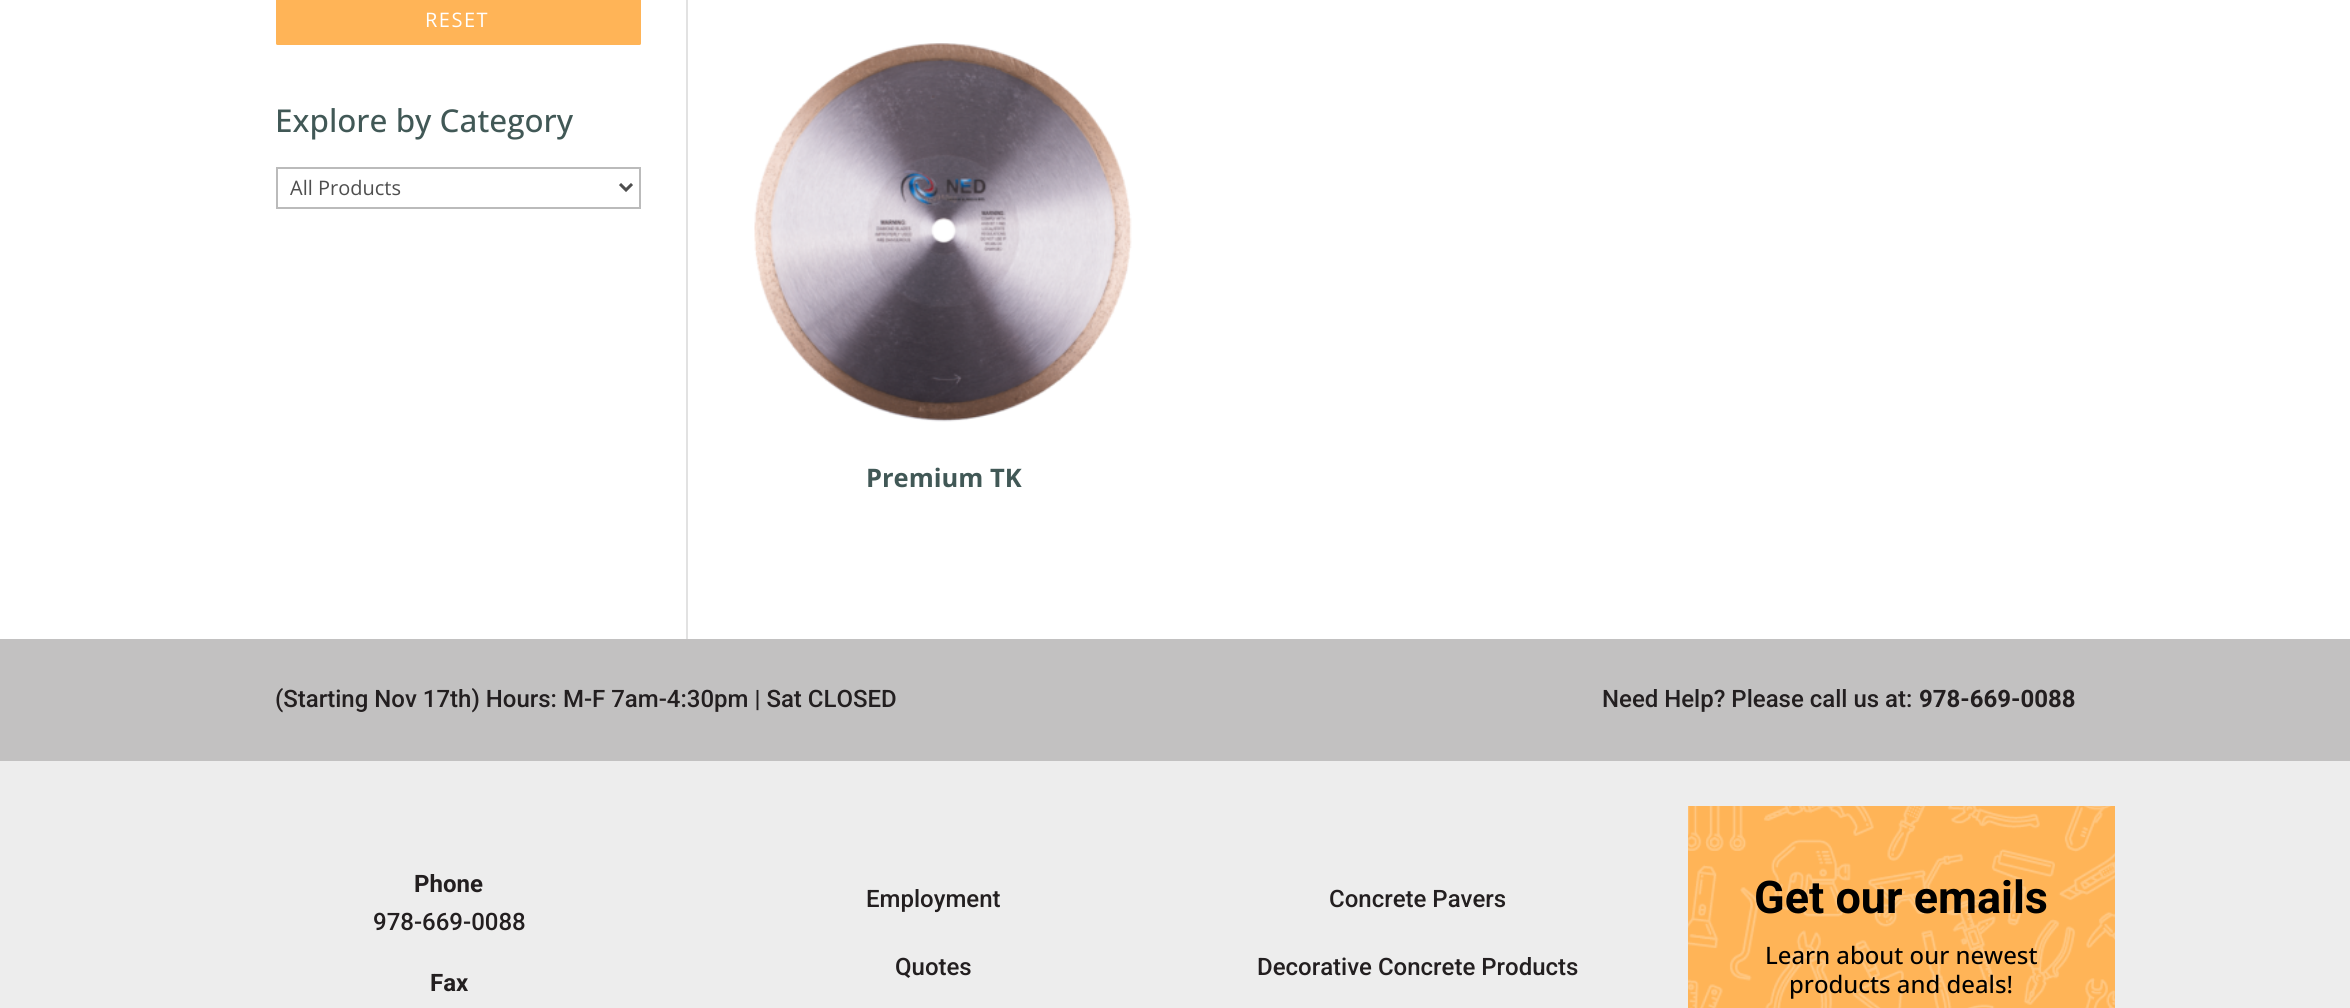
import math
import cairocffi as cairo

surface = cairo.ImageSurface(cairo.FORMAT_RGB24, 2350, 1008)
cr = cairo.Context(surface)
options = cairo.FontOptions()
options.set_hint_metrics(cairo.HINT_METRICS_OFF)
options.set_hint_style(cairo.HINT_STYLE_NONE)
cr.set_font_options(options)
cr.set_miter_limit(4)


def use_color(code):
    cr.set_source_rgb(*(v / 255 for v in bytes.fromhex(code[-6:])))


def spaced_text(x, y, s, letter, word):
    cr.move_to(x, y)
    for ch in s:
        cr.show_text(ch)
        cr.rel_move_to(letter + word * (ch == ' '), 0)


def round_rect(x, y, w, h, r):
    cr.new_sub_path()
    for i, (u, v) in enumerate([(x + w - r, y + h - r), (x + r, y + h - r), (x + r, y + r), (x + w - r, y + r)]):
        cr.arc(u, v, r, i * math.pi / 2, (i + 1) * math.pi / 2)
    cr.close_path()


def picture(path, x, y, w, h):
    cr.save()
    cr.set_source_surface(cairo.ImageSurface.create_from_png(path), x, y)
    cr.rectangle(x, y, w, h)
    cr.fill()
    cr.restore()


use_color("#ffffff")
cr.paint()
use_color("#e2e2e2")
cr.rectangle(686, 0, 2, 639)
cr.fill()
use_color("#ffb457")
round_rect(276, -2, 365, 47, 1.5)
cr.fill()
cr.select_font_face("Open Sans")
cr.set_font_size(20)
use_color("#ffffff")
spaced_text(425, 27, "RESET", 1.5, 0)
cr.select_font_face("Open Sans Medium")
cr.set_font_size(31.5)
use_color("#415856")
cr.move_to(275, 132)
cr.show_text("Explore by Category")
cr.rectangle(277, 168, 363, 40)
use_color("#bbbbbb")
cr.stroke()
cr.new_path()
cr.move_to(620, 184)
cr.line_to(626, 190)
cr.line_to(632, 184)
use_color("#4e4e4e")
cr.set_line_width(3)
cr.stroke()
cr.select_font_face("Open Sans")
cr.set_font_size(20)
cr.move_to(290, 195)
cr.show_text("All Products")
picture("img1.png", 754, 43, 378, 379)
cr.select_font_face("Open Sans", cairo.FONT_SLANT_NORMAL, cairo.FONT_WEIGHT_BOLD)
cr.set_font_size(25.5)
use_color("#415856")
cr.move_to(866, 487)
cr.show_text("Premium TK")
use_color("#c2c1c1")
cr.rectangle(0, 639, 2350, 122)
cr.fill()
cr.select_font_face("Roboto Medium")
cr.set_font_size(24)
use_color("#231f20")
cr.move_to(275, 707)
cr.show_text("(Starting Nov 17th) Hours: M-F 7am-4:30pm | Sat CLOSED")
cr.move_to(1602, 707)
cr.show_text("Need Help? Please call us at:")
cr.select_font_face("Roboto", cairo.FONT_SLANT_NORMAL, cairo.FONT_WEIGHT_BOLD)
cr.move_to(1919, 707)
cr.show_text("978-669-0088")
use_color("#ededed")
cr.rectangle(0, 761, 2350, 247)
cr.fill()
use_color("#231f20")
cr.move_to(414, 892)
cr.show_text("Phone")
cr.select_font_face("Roboto Medium")
cr.move_to(373, 930)
cr.show_text("978-669-0088")
cr.select_font_face("Roboto", cairo.FONT_SLANT_NORMAL, cairo.FONT_WEIGHT_BOLD)
cr.move_to(430, 991)
cr.show_text("Fax")
cr.select_font_face("Roboto Medium")
cr.move_to(866, 907)
cr.show_text("Employment")
cr.move_to(895, 975)
cr.show_text("Quotes")
cr.move_to(1329, 907)
cr.show_text("Concrete Pavers")
cr.move_to(1257, 975)
cr.show_text("Decorative Concrete Products")
use_color("#ffb457")
cr.rectangle(1688, 806, 427, 202)
cr.fill()
picture("img2.png", 1688, 806, 427, 202)
cr.select_font_face("Roboto", cairo.FONT_SLANT_NORMAL, cairo.FONT_WEIGHT_BOLD)
cr.set_font_size(45)
use_color("#000000")
cr.move_to(1754, 913)
cr.show_text("Get our emails")
cr.select_font_face("Open Sans Medium")
cr.set_font_size(24)
cr.move_to(1765, 964)
cr.show_text("Learn about our newest")
cr.move_to(1789, 993)
cr.show_text("products and deals!")
surface.write_to_png("result.png")
